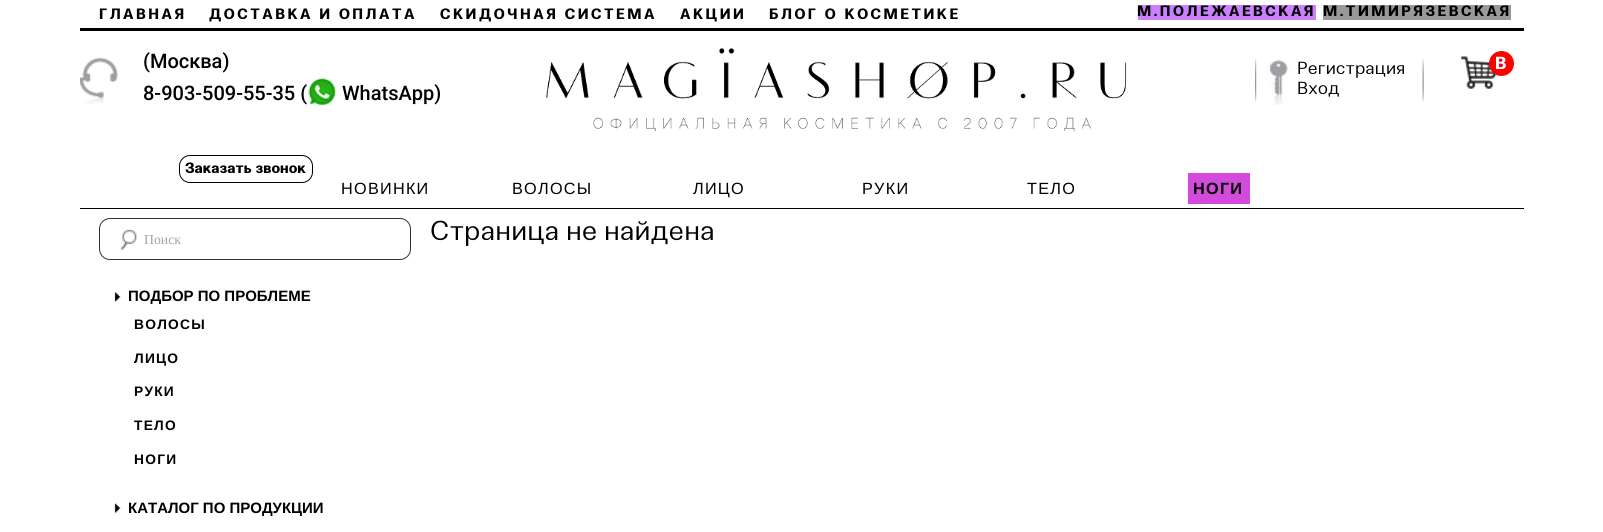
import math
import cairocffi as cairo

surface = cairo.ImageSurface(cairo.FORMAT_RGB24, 1603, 532)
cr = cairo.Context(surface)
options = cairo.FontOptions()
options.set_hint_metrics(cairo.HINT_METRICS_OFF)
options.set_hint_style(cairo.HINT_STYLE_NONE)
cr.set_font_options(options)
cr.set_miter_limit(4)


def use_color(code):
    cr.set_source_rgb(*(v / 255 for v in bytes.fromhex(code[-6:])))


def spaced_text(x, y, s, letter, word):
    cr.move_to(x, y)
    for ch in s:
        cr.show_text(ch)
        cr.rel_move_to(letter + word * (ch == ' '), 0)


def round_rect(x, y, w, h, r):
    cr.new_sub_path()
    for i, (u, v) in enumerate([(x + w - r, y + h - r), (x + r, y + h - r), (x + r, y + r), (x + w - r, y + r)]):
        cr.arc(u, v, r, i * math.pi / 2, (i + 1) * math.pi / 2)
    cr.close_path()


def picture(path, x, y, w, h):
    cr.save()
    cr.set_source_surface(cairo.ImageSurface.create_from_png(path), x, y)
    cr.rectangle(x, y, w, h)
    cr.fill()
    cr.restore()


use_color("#ffffff")
cr.paint()
use_color("#000000")
cr.rectangle(80, 28, 1444, 3)
cr.fill()
cr.select_font_face("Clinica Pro", cairo.FONT_SLANT_NORMAL, cairo.FONT_WEIGHT_BOLD)
cr.set_font_size(15)
spaced_text(99, 19, "ГЛАВНАЯ", 2.5, 0)
spaced_text(209, 19, "ДОСТАВКА И ОПЛАТА", 2.5, 0)
spaced_text(440, 19, "СКИДОЧНАЯ СИСТЕМА", 2.5, 0)
spaced_text(680, 19, "АКЦИИ", 2.5, 0)
spaced_text(769, 19, "БЛОГ О КОСМЕТИКЕ", 2.5, 0)
use_color("#cc80ff")
cr.rectangle(1138, 5, 178, 15)
cr.fill()
use_color("#000000")
spaced_text(1137, 16, "М.ПОЛЕЖАЕВСКАЯ", 2.5, 0)
use_color("#999999")
cr.rectangle(1323, 5, 188, 15)
cr.fill()
use_color("#000000")
spaced_text(1323, 16, "М.ТИМИРЯЗЕВСКАЯ", 2.5, 0)
picture("img1.png", 80, 57, 38, 48)
cr.select_font_face("Roboto Medium")
cr.set_font_size(20)
cr.move_to(143, 68)
cr.show_text("(Москва)")
cr.move_to(143, 100)
cr.show_text("8-903-509-55-35 (")
picture("img2.png", 308, 78, 29, 28)
cr.move_to(342, 100)
cr.show_text("WhatsApp)")
picture("img3.png", 546, 48, 581, 83)
picture("img4.png", 1255, 58, 2, 45)
picture("img5.png", 1267, 59, 24, 46)
cr.select_font_face("Clinica Pro")
cr.set_font_size(17.5)
cr.move_to(1297, 74)
cr.show_text("Регистрация")
cr.move_to(1297, 94)
cr.show_text("Вход")
picture("img6.png", 1422, 59, 2, 44)
picture("img7.png", 1461, 56, 36, 33)
use_color("#ff0000")
cr.arc(1501.5, 63.5, 12.5, 0, 2 * math.pi)
cr.fill()
cr.select_font_face("Clinica Pro", cairo.FONT_SLANT_NORMAL, cairo.FONT_WEIGHT_BOLD)
use_color("#ffffff")
cr.move_to(1495, 69)
cr.show_text("В")
round_rect(179.5, 155.5, 133, 27, 10.5)
use_color("#000000")
cr.set_line_width(1)
cr.stroke()
cr.set_font_size(15)
cr.move_to(185, 173)
cr.show_text("Заказать звонок")
cr.rectangle(80, 208, 1444, 1)
cr.fill()
cr.select_font_face("Liberation Sans")
cr.set_font_size(16.25)
spaced_text(341, 194, "НОВИНКИ", 1.25, 0)
spaced_text(512, 194, "ВОЛОСЫ", 1.25, 0)
spaced_text(693, 194, "ЛИЦО", 1.25, 0)
spaced_text(862, 194, "РУКИ", 1.25, 0)
spaced_text(1027, 194, "ТЕЛО", 1.25, 0)
use_color("#d34adc")
cr.rectangle(1188, 173, 62, 31)
cr.fill()
cr.select_font_face("Liberation Sans", cairo.FONT_SLANT_NORMAL, cairo.FONT_WEIGHT_BOLD)
use_color("#000000")
spaced_text(1193, 194, "НОГИ", 1.25, 0)
round_rect(99.5, 218.5, 311, 41, 10.5)
use_color("#333333")
cr.stroke()
picture("img8.png", 120, 229, 17, 22)
cr.select_font_face("Liberation Serif")
cr.set_font_size(13.75)
use_color("#a4a4a4")
cr.move_to(144, 244)
cr.show_text("Поиск")
picture("img9.png", 114, 292, 7, 10)
cr.select_font_face("Liberation Sans", cairo.FONT_SLANT_NORMAL, cairo.FONT_WEIGHT_BOLD)
cr.set_font_size(15)
use_color("#000000")
cr.move_to(128, 301)
cr.show_text("ПОДБОР ПО ПРОБЛЕМЕ")
cr.set_font_size(13.75)
spaced_text(134, 329, "ВОЛОСЫ", 1.25, 0)
spaced_text(134, 363, "ЛИЦО", 1.25, 0)
spaced_text(134, 396, "РУКИ", 1.25, 0)
spaced_text(134, 430, "ТЕЛО", 1.25, 0)
spaced_text(134, 464, "НОГИ", 1.25, 0)
picture("img10.png", 114, 503, 7, 10)
cr.set_font_size(15)
cr.move_to(128, 513)
cr.show_text("КАТАЛОГ ПО ПРОДУКЦИИ")
cr.select_font_face("Clinica Pro")
cr.set_font_size(27.5)
cr.move_to(430, 240)
cr.show_text("Страница не найдена")
surface.write_to_png("result.png")
